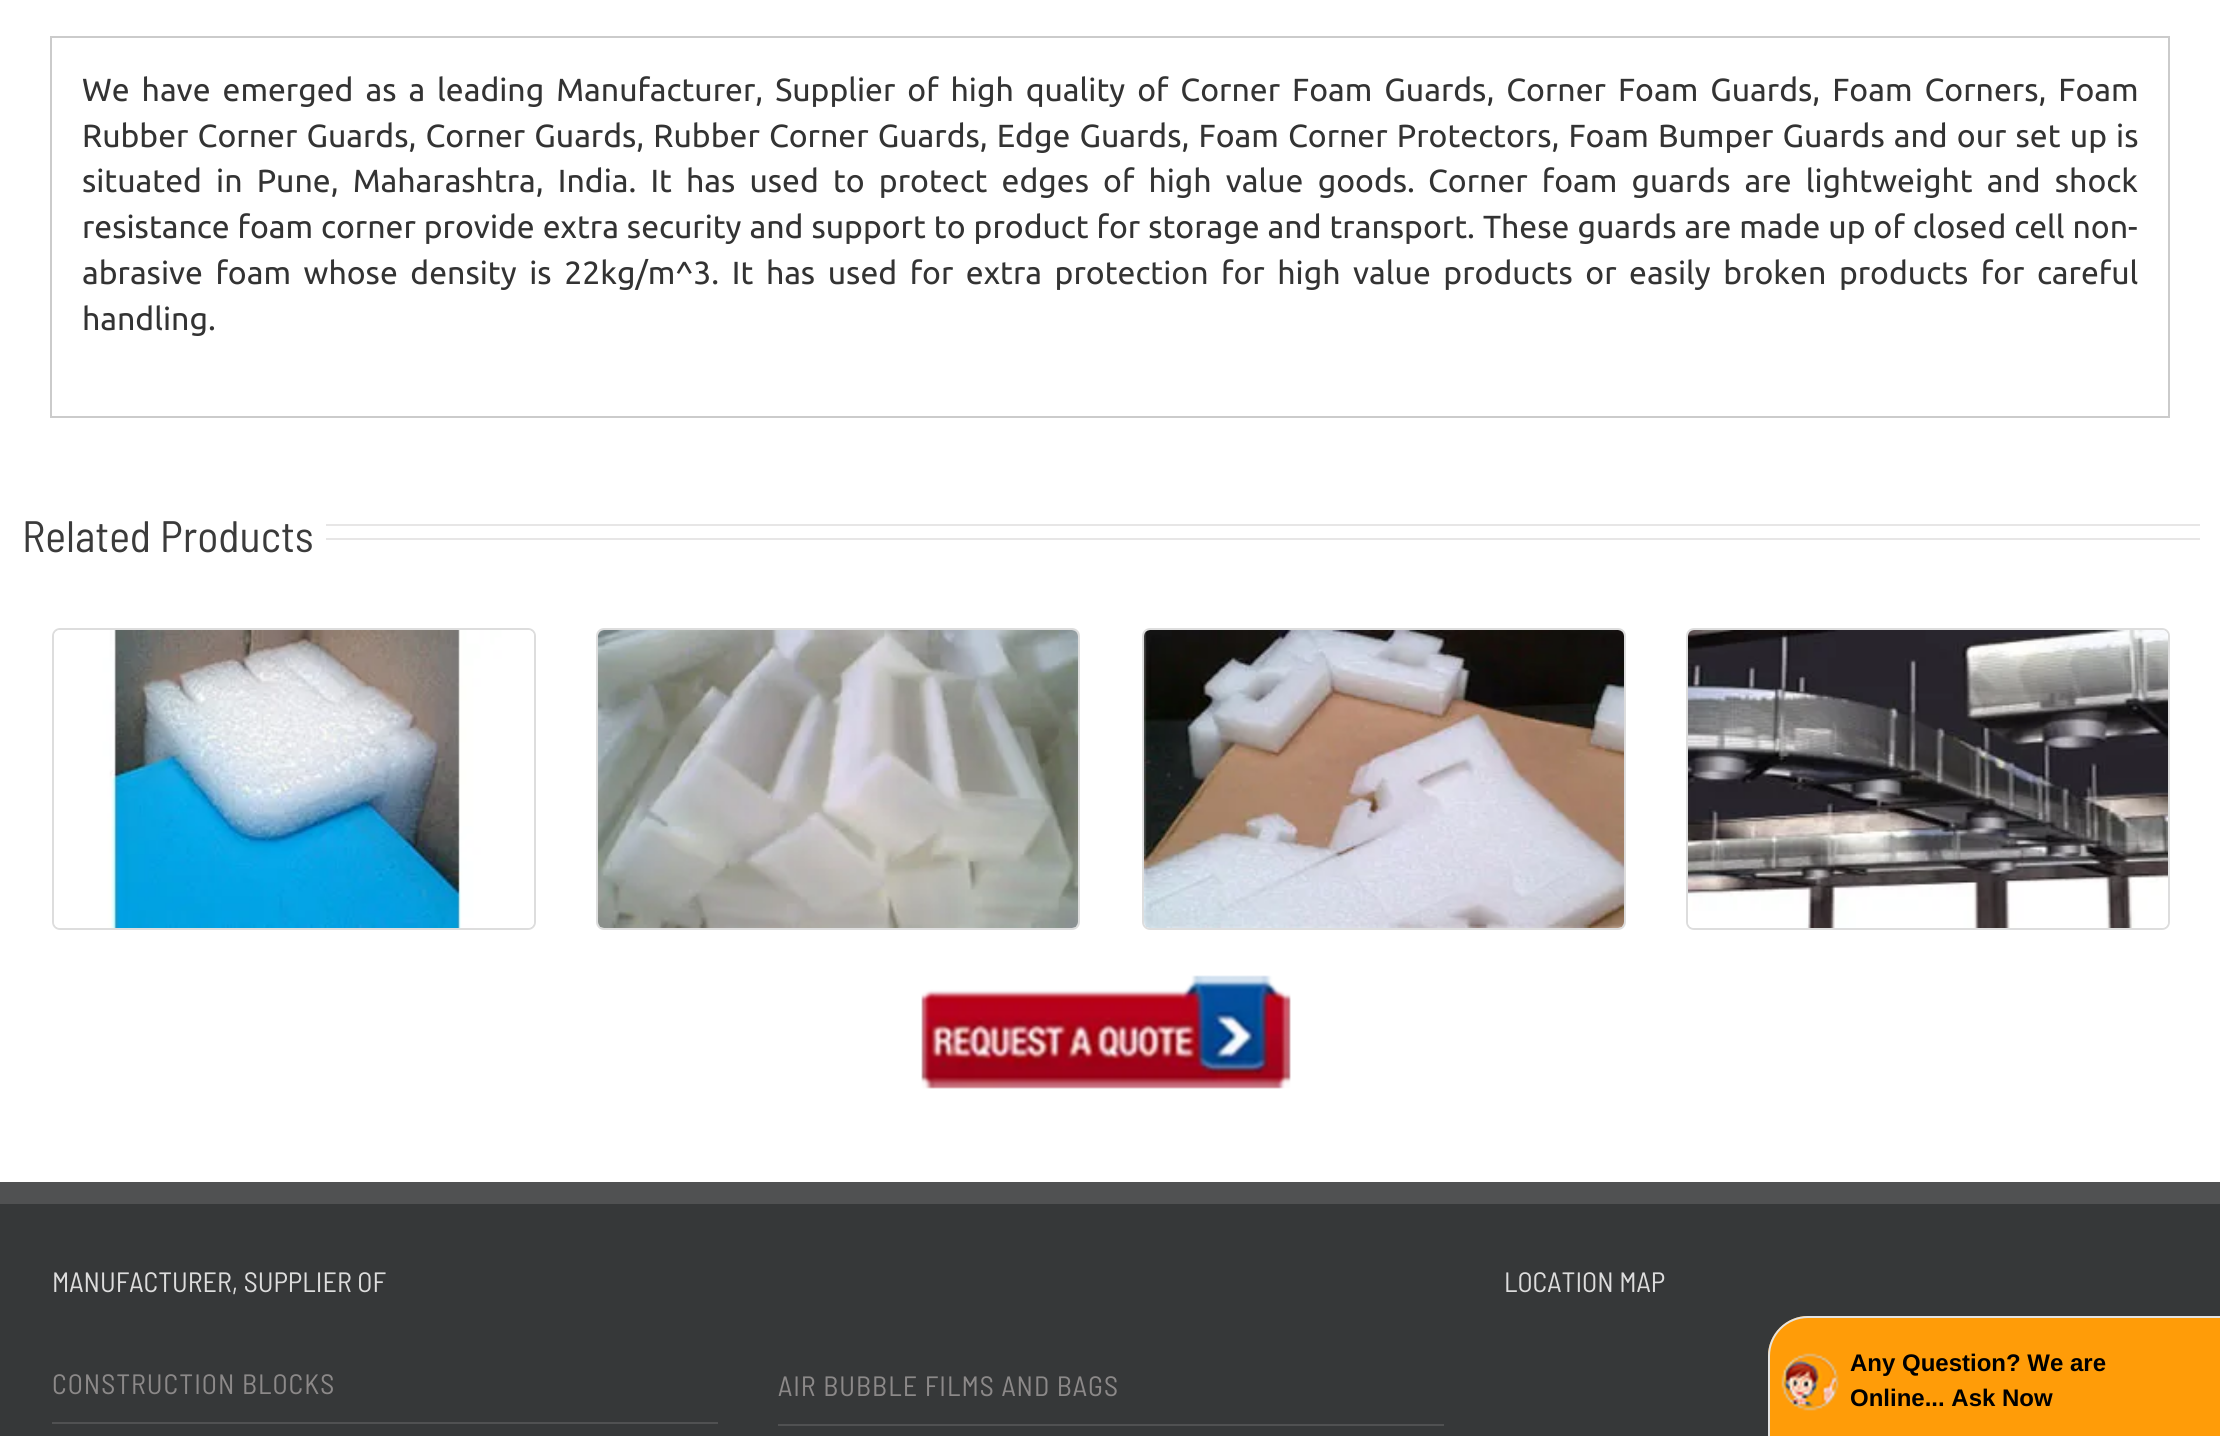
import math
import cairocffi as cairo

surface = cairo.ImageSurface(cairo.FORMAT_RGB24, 2220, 1436)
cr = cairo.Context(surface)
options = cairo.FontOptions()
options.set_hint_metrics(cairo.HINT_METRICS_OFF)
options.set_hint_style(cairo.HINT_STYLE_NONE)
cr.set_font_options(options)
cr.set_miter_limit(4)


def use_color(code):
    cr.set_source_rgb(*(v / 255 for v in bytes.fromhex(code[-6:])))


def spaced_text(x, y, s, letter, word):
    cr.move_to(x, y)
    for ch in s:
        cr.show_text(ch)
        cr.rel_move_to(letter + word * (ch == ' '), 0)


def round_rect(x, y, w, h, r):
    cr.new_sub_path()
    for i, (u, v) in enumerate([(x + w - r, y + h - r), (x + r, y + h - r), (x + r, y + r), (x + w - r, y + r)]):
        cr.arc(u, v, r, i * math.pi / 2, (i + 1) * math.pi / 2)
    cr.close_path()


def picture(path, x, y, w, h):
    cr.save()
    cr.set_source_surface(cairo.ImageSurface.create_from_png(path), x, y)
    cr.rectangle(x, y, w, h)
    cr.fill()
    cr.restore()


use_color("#ffffff")
cr.paint()
cr.rectangle(51, 37, 2118, 380)
use_color("#cbcbcb")
cr.stroke()
cr.select_font_face("Ubuntu")
cr.set_font_size(32)
use_color("#333333")
spaced_text(82, 101, "We have emerged as a leading Manufacturer, Supplier of high quality of Corner Foam Guards, Corner Foam Guards, Foam Corners, Foam", 0, 4.6)
spaced_text(82, 147, "Rubber Corner Guards, Corner Guards, Rubber Corner Guards, Edge Guards, Foam Corner Protectors, Foam Bumper Guards and our set up is", 0, 1.75)
spaced_text(82, 192, "situated in Pune, Maharashtra, India. It has used to protect edges of high value goods.", 0, 6.75)
spaced_text(1428, 192, "Corner foam guards are lightweight and shock", 0, 6.75)
spaced_text(82, 238, "resistance foam corner provide extra security and support to product for storage and transport.", 0, 0.6)
spaced_text(1483, 238, "These guards are made up of closed cell non-", 0, 0.6)
spaced_text(82, 284, "abrasive foam whose density is 22kg/m^3. It has used for extra protection for high value products or easily broken products for careful", 0, 5.2)
cr.move_to(82, 330)
cr.show_text("handling.")
cr.select_font_face("Barlow Semi Condensed")
cr.set_font_size(44)
use_color("#3b3b3b")
cr.move_to(22, 552)
cr.show_text("Related Products")
use_color("#e7e6e6")
cr.rectangle(326, 524, 1874, 2)
cr.fill()
cr.rectangle(326, 538, 1874, 2)
cr.fill()
round_rect(53, 629, 482, 300, 7)
use_color("#dddddd")
cr.stroke()
picture("img1.png", 54, 630, 480, 298)
round_rect(597, 629, 482, 300, 7)
cr.stroke()
picture("img2.png", 598, 630, 480, 298)
round_rect(1143, 629, 482, 300, 7)
cr.stroke()
picture("img3.png", 1144, 630, 480, 298)
round_rect(1687, 629, 482, 300, 7)
cr.stroke()
picture("img4.png", 1688, 630, 480, 298)
picture("img5.png", 921, 975, 370, 114)
use_color("#363839")
cr.rectangle(0, 1204, 2220, 232)
cr.fill()
use_color("#505152")
cr.rectangle(0, 1182, 2220, 22)
cr.fill()
cr.set_font_size(28)
use_color("#dddddd")
cr.move_to(52, 1292)
cr.show_text("MANUFACTURER, SUPPLIER OF")
use_color("#505152")
cr.rectangle(52, 1422, 666, 2)
cr.fill()
use_color("#8c8989")
spaced_text(52, 1394, "CONSTRUCTION BLOCKS", 1, 0)
use_color("#dddddd")
cr.move_to(1504, 1292)
cr.show_text("LOCATION MAP")
use_color("#505152")
cr.rectangle(778, 1424, 666, 2)
cr.fill()
use_color("#8c8989")
spaced_text(778, 1396, "AIR BUBBLE FILMS AND BAGS", 1, 0)
use_color("#ff9c08")
cr.new_path()
cr.move_to(1808, 1316)
cr.line_to(2220, 1316)
cr.line_to(2220, 1436)
cr.line_to(1768, 1436)
cr.line_to(1768, 1356)
cr.curve_to(1768, 1334, 1786, 1316, 1808, 1316)
cr.close_path()
cr.fill()
use_color("#e3e3e3")
cr.set_fill_rule(cairo.FILL_RULE_EVEN_ODD)
cr.new_path()
cr.move_to(1808, 1316)
cr.line_to(2220, 1316)
cr.line_to(2220, 1436)
cr.line_to(1768, 1436)
cr.line_to(1768, 1356)
cr.curve_to(1768, 1334, 1786, 1316, 1808, 1316)
cr.close_path()
cr.move_to(1808, 1318)
cr.line_to(2220, 1318)
cr.line_to(2220, 1436)
cr.line_to(1770, 1436)
cr.line_to(1770, 1356)
cr.curve_to(1770, 1335, 1787, 1318, 1808, 1318)
cr.close_path()
cr.fill()
picture("img6.png", 1781, 1353, 58, 58)
cr.select_font_face("Liberation Sans", cairo.FONT_SLANT_NORMAL, cairo.FONT_WEIGHT_BOLD)
cr.set_font_size(24)
use_color("#000000")
cr.move_to(1850, 1371)
cr.show_text("Any Question? We are")
cr.move_to(1850, 1406)
cr.show_text("Online... Ask Now")
surface.write_to_png("result.png")
